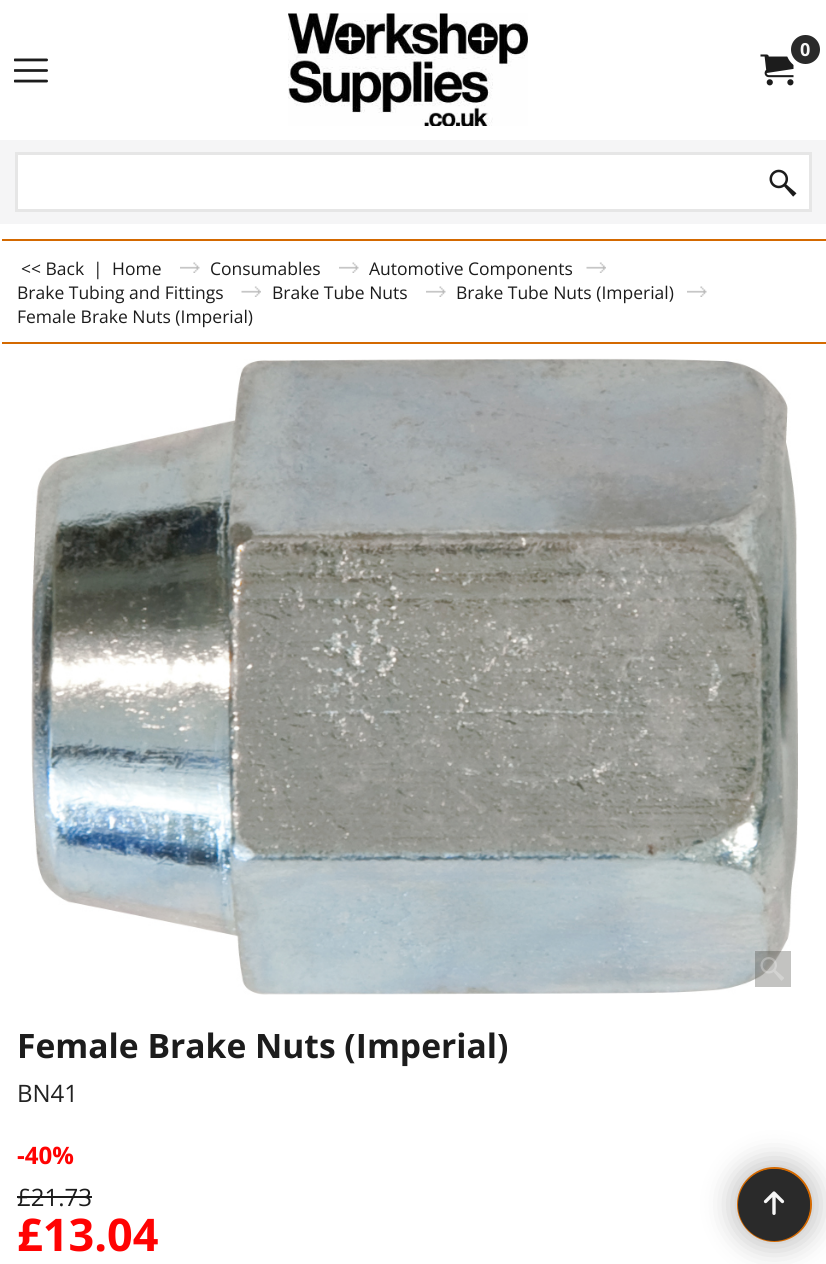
import math
import cairocffi as cairo

surface = cairo.ImageSurface(cairo.FORMAT_RGB24, 826, 1264)
cr = cairo.Context(surface)
options = cairo.FontOptions()
options.set_hint_metrics(cairo.HINT_METRICS_OFF)
options.set_hint_style(cairo.HINT_STYLE_NONE)
cr.set_font_options(options)
cr.set_miter_limit(4)


def use_color(code):
    cr.set_source_rgb(*(v / 255 for v in bytes.fromhex(code[-6:])))


def round_rect(x, y, w, h, r):
    cr.new_sub_path()
    for i, (u, v) in enumerate([(x + w - r, y + h - r), (x + r, y + h - r), (x + r, y + r), (x + w - r, y + r)]):
        cr.arc(u, v, r, i * math.pi / 2, (i + 1) * math.pi / 2)
    cr.close_path()


def shadow(x, y, w, h, r, blur, alpha):
    cr.push_group_with_content(cairo.CONTENT_ALPHA)
    cr.set_operator(cairo.OPERATOR_SOURCE)
    for i in range(15, -16, -2):
        e = blur * i / 6
        if min(w, h) + 2 * e > 0:
            cr.set_source_rgba(0, 0, 0, alpha * math.erfc((i - 1) / 8.5) / 2)
            round_rect(x - e, y - e, w + 2 * e, h + 2 * e, max(0, min(r + e + blur * .6, min(w, h) / 2 + e)))
            cr.fill()
    cr.mask(cr.pop_group())


def picture(path, x, y, w, h):
    cr.save()
    cr.set_source_surface(cairo.ImageSurface.create_from_png(path), x, y)
    cr.rectangle(x, y, w, h)
    cr.fill()
    cr.restore()


use_color("#ffffff")
cr.paint()
picture("img1.png", 288, 13, 240, 113)
picture("img2.png", 760, 54, 34, 32)
use_color("#2a2a2a")
cr.arc(805.5, 49.5, 17, 0, 2 * math.pi)
cr.fill_preserve()
use_color("#ffffff")
cr.set_line_width(5)
cr.stroke()
cr.select_font_face("Open Sans", cairo.FONT_SLANT_NORMAL, cairo.FONT_WEIGHT_BOLD)
cr.set_font_size(18)
use_color("#f7f7f7")
cr.move_to(800, 56)
cr.show_text("0")
picture("img3.png", 14, 58, 34, 25)
use_color("#f5f5f6")
cr.rectangle(0, 140, 826, 84)
cr.fill()
use_color("#ffffff")
cr.rectangle(16.5, 153.5, 794, 57)
cr.fill_preserve()
use_color("#e6e6e6")
cr.set_line_width(3)
cr.stroke()
picture("img4.png", 769, 169, 28, 28)
cr.save()
cr.rectangle(2, 225, 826, 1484)
cr.clip()
cr.rectangle(-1, 240, 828, 103)
use_color("#d46900")
cr.set_line_width(2)
cr.stroke()
cr.restore()
cr.select_font_face("Open Sans")
cr.set_font_size(17.5)
use_color("#1c1c1c")
cr.move_to(21, 275)
cr.show_text("<< Back")
cr.move_to(93, 275)
cr.show_text("|")
cr.move_to(112, 275)
cr.show_text("Home")
picture("img5.png", 180, 262, 20, 11)
cr.move_to(210, 275)
cr.show_text("Consumables")
picture("img6.png", 339, 262, 20, 11)
cr.move_to(369, 275)
cr.show_text("Automotive Components")
picture("img7.png", 586, 262, 20, 11)
cr.move_to(17, 299)
cr.show_text("Brake Tubing and Fittings")
picture("img8.png", 241, 286, 20, 11)
cr.move_to(272, 299)
cr.show_text("Brake Tube Nuts")
picture("img6.png", 426, 286, 20, 11)
cr.move_to(456, 299)
cr.show_text("Brake Tube Nuts (Imperial)")
picture("img5.png", 687, 286, 20, 11)
cr.move_to(17, 323)
cr.show_text("Female Brake Nuts (Imperial)")
picture("img9.png", 31, 358, 767, 637)
cr.set_source_rgba(0.22, 0.212, 0.188, 0.3)
cr.rectangle(755, 951, 36, 36)
cr.fill()
picture("img10.png", 760, 957, 24, 24)
cr.select_font_face("Open Sans", cairo.FONT_SLANT_NORMAL, cairo.FONT_WEIGHT_BOLD)
cr.set_font_size(33.6)
use_color("#1c1c1c")
cr.move_to(17, 1058)
cr.show_text("Female Brake Nuts (Imperial)")
cr.select_font_face("Open Sans")
cr.set_font_size(24)
use_color("#222222")
cr.move_to(17, 1102)
cr.show_text("BN41")
cr.select_font_face("Open Sans", cairo.FONT_SLANT_NORMAL, cairo.FONT_WEIGHT_BOLD)
use_color("#ff0303")
cr.move_to(17, 1164)
cr.show_text("-40%")
cr.select_font_face("Open Sans")
use_color("#1c1c1c")
cr.move_to(17, 1206)
cr.show_text("£21.73")
cr.rectangle(17, 1196, 75, 2)
cr.fill()
cr.select_font_face("Open Sans", cairo.FONT_SLANT_NORMAL, cairo.FONT_WEIGHT_BOLD)
cr.set_font_size(45)
use_color("#ff0303")
cr.move_to(17, 1251)
cr.show_text("£13.04")
use_color("#000000")
shadow(728, 1158, 93, 93, 46.5, 13, 0.2)
use_color("#2a2a2a")
cr.arc(774.5, 1204.5, 36.5, 0, 2 * math.pi)
cr.fill_preserve()
use_color("#d46900")
cr.set_line_width(2)
cr.stroke()
use_color("#2a2a2a")
cr.arc(774, 1205, 36, 0, 2 * math.pi)
cr.fill()
picture("img11.png", 763, 1191, 22, 24)
surface.write_to_png("result.png")
